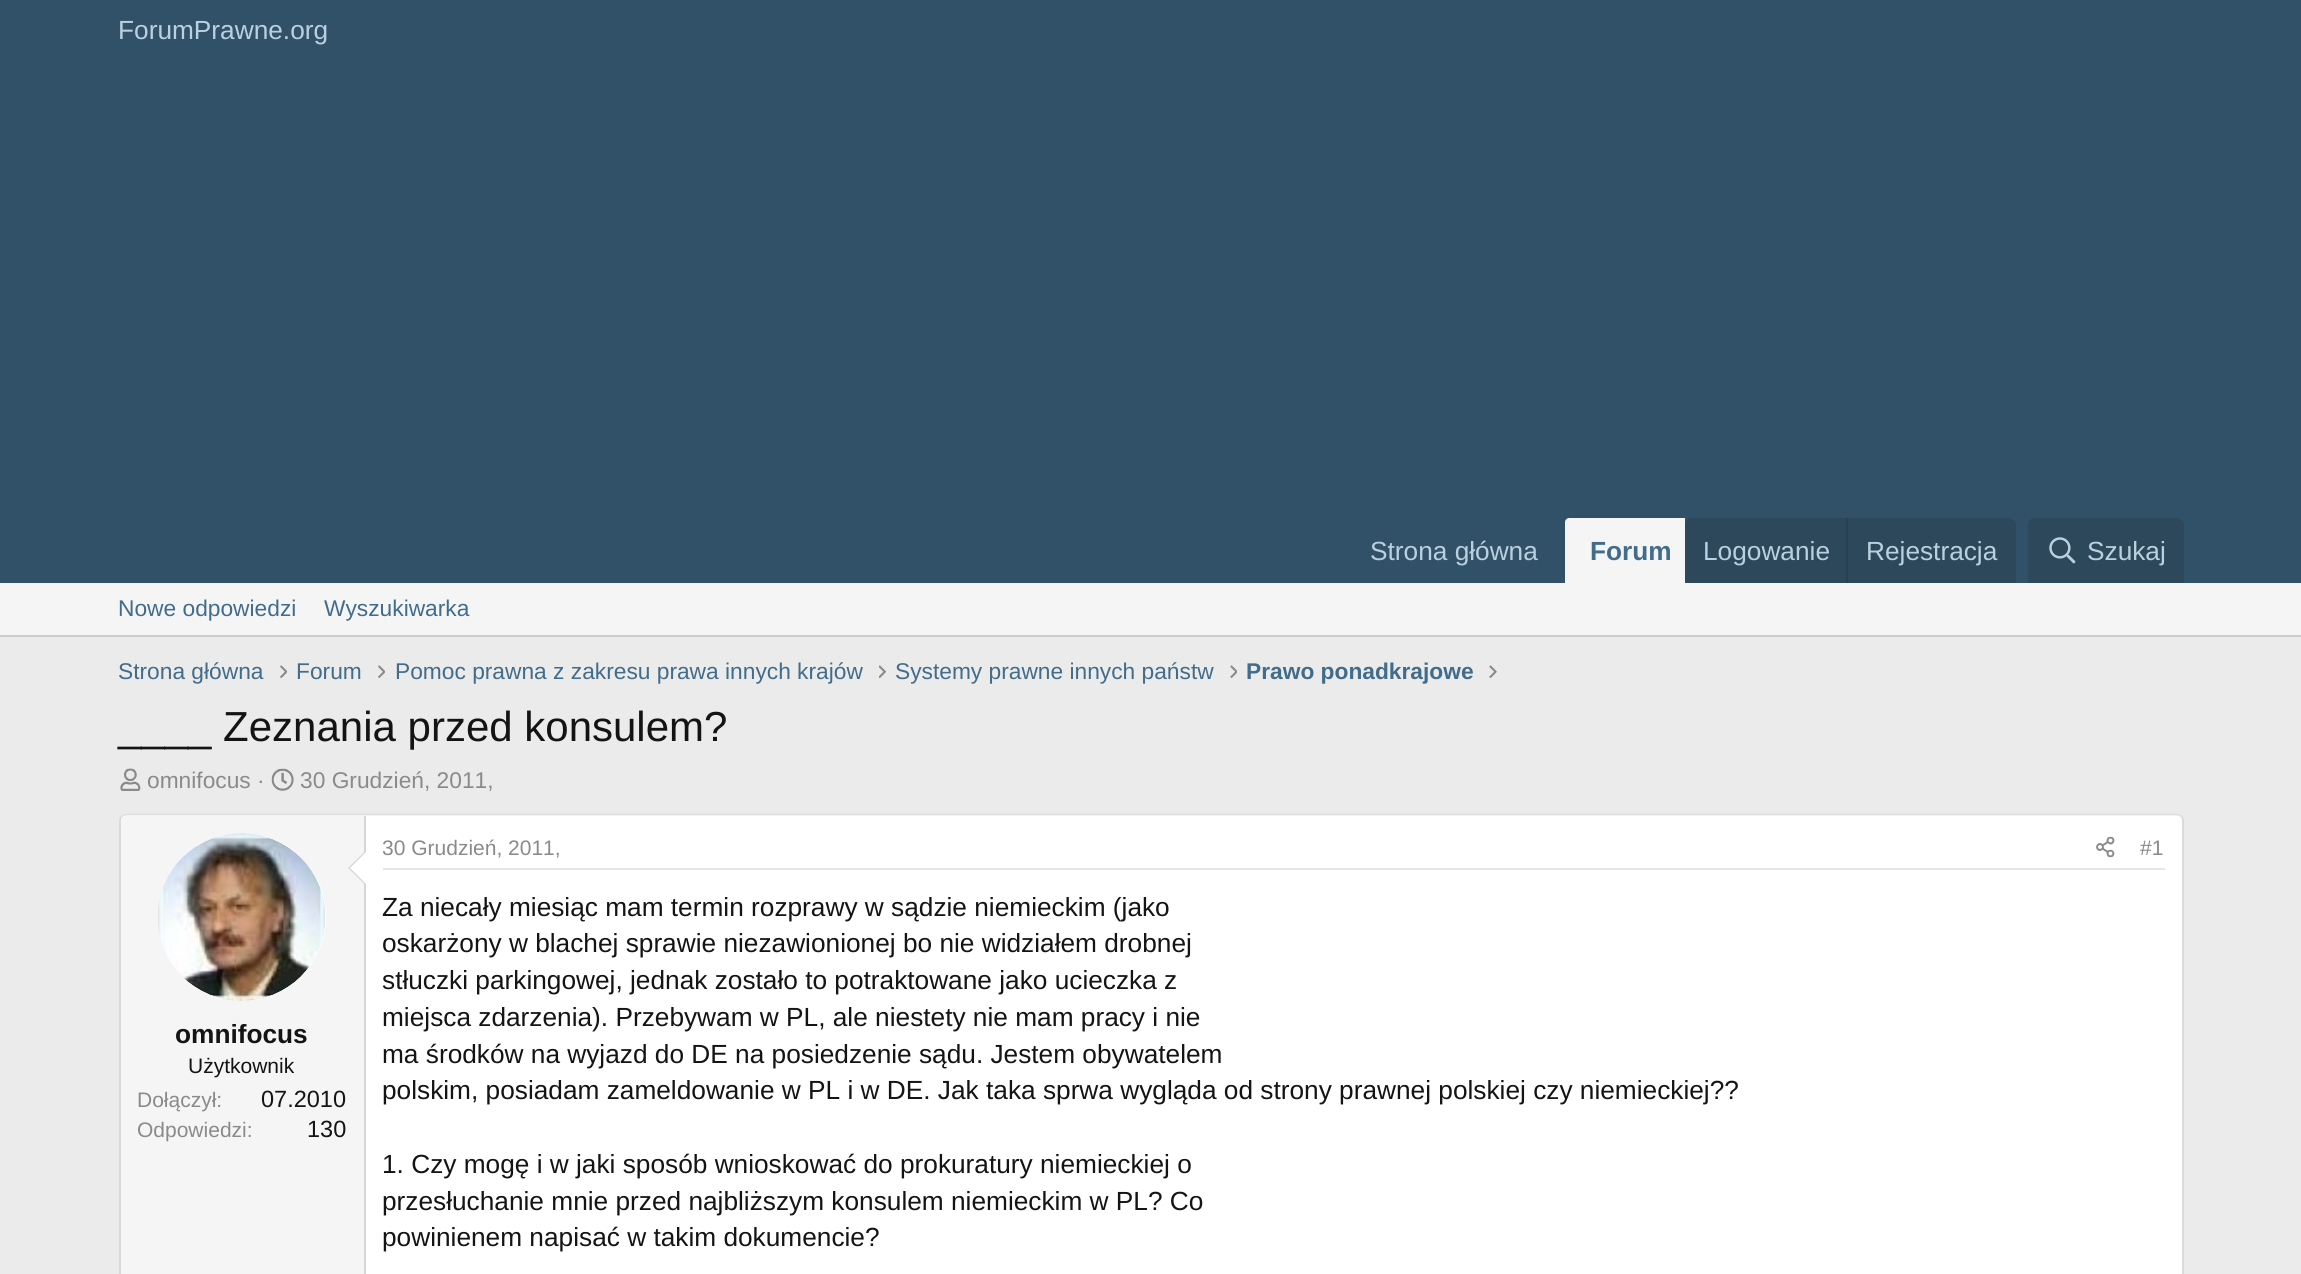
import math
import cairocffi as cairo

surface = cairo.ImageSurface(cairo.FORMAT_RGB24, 2301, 1274)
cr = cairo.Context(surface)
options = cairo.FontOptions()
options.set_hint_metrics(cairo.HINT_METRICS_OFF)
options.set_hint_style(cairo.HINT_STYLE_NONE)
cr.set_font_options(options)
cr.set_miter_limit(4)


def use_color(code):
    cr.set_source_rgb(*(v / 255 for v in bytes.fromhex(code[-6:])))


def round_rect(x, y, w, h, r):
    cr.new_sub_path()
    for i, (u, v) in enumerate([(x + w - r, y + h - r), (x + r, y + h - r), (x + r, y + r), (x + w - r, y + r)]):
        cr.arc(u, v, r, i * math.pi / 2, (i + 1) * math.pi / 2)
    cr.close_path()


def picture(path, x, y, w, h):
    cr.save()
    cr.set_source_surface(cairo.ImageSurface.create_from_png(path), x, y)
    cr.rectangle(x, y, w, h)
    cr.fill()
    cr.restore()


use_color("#ebebeb")
cr.paint()
use_color("#315168")
cr.rectangle(0, 0, 2301, 583)
cr.fill()
cr.select_font_face("Liberation Sans")
cr.set_font_size(26.25)
use_color("#bad0de")
cr.move_to(118, 39)
cr.show_text("ForumPrawne.org")
cr.move_to(1370, 560)
cr.show_text("Strona główna")
use_color("#f5f5f5")
cr.new_path()
cr.move_to(1569, 518)
cr.line_to(1685, 518)
cr.line_to(1685, 583)
cr.line_to(1565, 583)
cr.line_to(1565, 522)
cr.curve_to(1565, 520, 1567, 518, 1569, 518)
cr.close_path()
cr.fill()
cr.select_font_face("Liberation Sans", cairo.FONT_SLANT_NORMAL, cairo.FONT_WEIGHT_BOLD)
use_color("#416c8b")
cr.move_to(1590, 560)
cr.show_text("Forum")
use_color("#2d485b")
cr.new_path()
cr.move_to(1692, 518)
cr.line_to(2009, 518)
cr.curve_to(2013, 518, 2016, 521, 2016, 525)
cr.line_to(2016, 583)
cr.line_to(1685, 583)
cr.line_to(1685, 525)
cr.curve_to(1685, 521, 1688, 518, 1692, 518)
cr.close_path()
cr.fill()
cr.select_font_face("Liberation Sans")
use_color("#bad0de")
cr.move_to(1703, 560)
cr.show_text("Logowanie")
use_color("#294050")
cr.rectangle(1846, 518, 2, 65)
cr.fill()
use_color("#bad0de")
cr.move_to(1866, 560)
cr.show_text("Rejestracja")
use_color("#2d485b")
cr.new_path()
cr.move_to(2035, 518)
cr.line_to(2177, 518)
cr.curve_to(2181, 518, 2184, 521, 2184, 525)
cr.line_to(2184, 583)
cr.line_to(2028, 583)
cr.line_to(2028, 525)
cr.curve_to(2028, 521, 2031, 518, 2035, 518)
cr.close_path()
cr.fill()
picture("img1.png", 2049, 537, 27, 27)
use_color("#bad0de")
cr.move_to(2087, 560)
cr.show_text("Szukaj")
use_color("#f5f5f5")
cr.rectangle(0, 583, 2301, 52)
cr.fill()
use_color("#cccccc")
cr.rectangle(0, 635, 2301, 2)
cr.fill()
cr.set_font_size(22.75)
use_color("#416c8b")
cr.move_to(118, 616)
cr.show_text("Nowe odpowiedzi")
cr.move_to(324, 616)
cr.show_text("Wyszukiwarka")
cr.move_to(118, 679)
cr.show_text("Strona główna")
picture("img2.png", 280, 665, 7, 13)
cr.move_to(296, 679)
cr.show_text("Forum")
picture("img2.png", 378, 665, 7, 13)
cr.move_to(395, 679)
cr.show_text("Pomoc prawna z zakresu prawa innych krajów")
picture("img3.png", 879, 665, 7, 13)
cr.move_to(895, 679)
cr.show_text("Systemy prawne innych państw")
picture("img4.png", 1230, 665, 7, 13)
cr.select_font_face("Liberation Sans", cairo.FONT_SLANT_NORMAL, cairo.FONT_WEIGHT_BOLD)
cr.move_to(1246, 679)
cr.show_text("Prawo ponadkrajowe")
picture("img5.png", 1489, 665, 8, 13)
cr.select_font_face("Liberation Sans")
cr.set_font_size(42)
use_color("#141414")
cr.move_to(118, 741)
cr.show_text("____ Zeznania przed konsulem?")
picture("img6.png", 120, 768, 21, 23)
cr.set_font_size(22.75)
use_color("#8a8a8a")
cr.move_to(147, 788)
cr.show_text("omnifocus ·")
picture("img7.png", 271, 768, 23, 23)
cr.move_to(300, 788)
cr.show_text("30 Grudzień, 2011,")
use_color("#ffffff")
round_rect(119, 814, 2065, 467, 7)
cr.fill()
cr.new_path()
cr.move_to(121.5, 816.5)
cr.curve_to(123, 815.5, 124.5, 814.5, 126, 814.5)
cr.line_to(2177, 814.5)
cr.curve_to(2178.5, 814.5, 2180, 815.5, 2181.5, 816.5)
use_color("#e0e0e0")
cr.set_line_width(1.8)
cr.stroke()
cr.new_path()
cr.move_to(2181.5, 816.5)
cr.curve_to(2182.5, 817.5, 2183, 819, 2183, 821)
cr.line_to(2183, 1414)
cr.curve_to(2183, 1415.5, 2182.5, 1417, 2181.5, 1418.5)
use_color("#d6d6d6")
cr.stroke()
cr.new_path()
cr.move_to(121.5, 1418.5)
cr.curve_to(120.5, 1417, 120, 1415.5, 120, 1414)
cr.line_to(120, 821)
cr.curve_to(120, 819, 120.5, 817.5, 121.5, 816.5)
cr.stroke()
use_color("#f5f5f5")
cr.new_path()
cr.move_to(126, 816)
cr.line_to(366, 816)
cr.line_to(366, 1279)
cr.line_to(126, 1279)
cr.curve_to(123, 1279, 121, 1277, 121, 1274)
cr.line_to(121, 821)
cr.curve_to(121, 818, 123, 816, 126, 816)
cr.close_path()
cr.fill()
use_color("#d6d6d6")
cr.rectangle(364, 816, 2, 458)
cr.fill()
use_color("#ffffff")
cr.arc(242, 917, 84, 0, 2 * math.pi)
cr.fill()
picture("img8.png", 158, 833, 167, 168)
use_color("#d6d6d6")
cr.new_path()
cr.move_to(366, 850.5)
cr.line_to(366, 885.5)
cr.line_to(348, 868)
cr.close_path()
cr.fill()
use_color("#ffffff")
cr.new_path()
cr.move_to(366, 852)
cr.line_to(366, 884)
cr.line_to(350, 868)
cr.close_path()
cr.fill()
cr.select_font_face("Liberation Sans", cairo.FONT_SLANT_NORMAL, cairo.FONT_WEIGHT_BOLD)
cr.set_font_size(26.25)
use_color("#141414")
cr.move_to(175, 1043)
cr.show_text("omnifocus")
cr.select_font_face("Liberation Sans")
cr.set_font_size(21)
cr.move_to(188, 1073)
cr.show_text("Użytkownik")
use_color("#8a8a8a")
cr.move_to(137, 1107)
cr.show_text("Dołączył:")
cr.set_font_size(23.5)
use_color("#141414")
cr.move_to(261, 1107)
cr.show_text("07.2010")
cr.set_font_size(21)
use_color("#8a8a8a")
cr.move_to(137, 1137)
cr.show_text("Odpowiedzi:")
cr.set_font_size(23.5)
use_color("#141414")
cr.move_to(307, 1137)
cr.show_text("130")
use_color("#e6e6e6")
cr.rectangle(383, 868, 1782, 2)
cr.fill()
cr.set_font_size(21)
use_color("#8a8a8a")
cr.move_to(382, 855)
cr.show_text("30 Grudzień, 2011,")
picture("img9.png", 2096, 836, 19, 22)
cr.move_to(2140, 855)
cr.show_text("#1")
cr.set_font_size(26.25)
use_color("#141414")
cr.move_to(382, 916)
cr.show_text("Za niecały miesiąc mam termin rozprawy w sądzie niemieckim (jako")
cr.move_to(382, 952)
cr.show_text("oskarżony w blachej sprawie niezawionionej bo nie widziałem drobnej")
cr.move_to(382, 989)
cr.show_text("stłuczki parkingowej, jednak zostało to potraktowane jako ucieczka z")
cr.move_to(382, 1026)
cr.show_text("miejsca zdarzenia). Przebywam w PL, ale niestety nie mam pracy i nie")
cr.move_to(382, 1063)
cr.show_text("ma środków na wyjazd do DE na posiedzenie sądu. Jestem obywatelem")
cr.move_to(382, 1099)
cr.show_text("polskim, posiadam zameldowanie w PL i w DE. Jak taka sprwa wygląda od strony prawnej polskiej czy niemieckiej??")
cr.move_to(382, 1173)
cr.show_text("1. Czy mogę i w jaki sposób wnioskować do prokuratury niemieckiej o")
cr.move_to(382, 1210)
cr.show_text("przesłuchanie mnie przed najbliższym konsulem niemieckim w PL? Co")
cr.move_to(382, 1246)
cr.show_text("powinienem napisać w takim dokumencie?")
surface.write_to_png("result.png")
